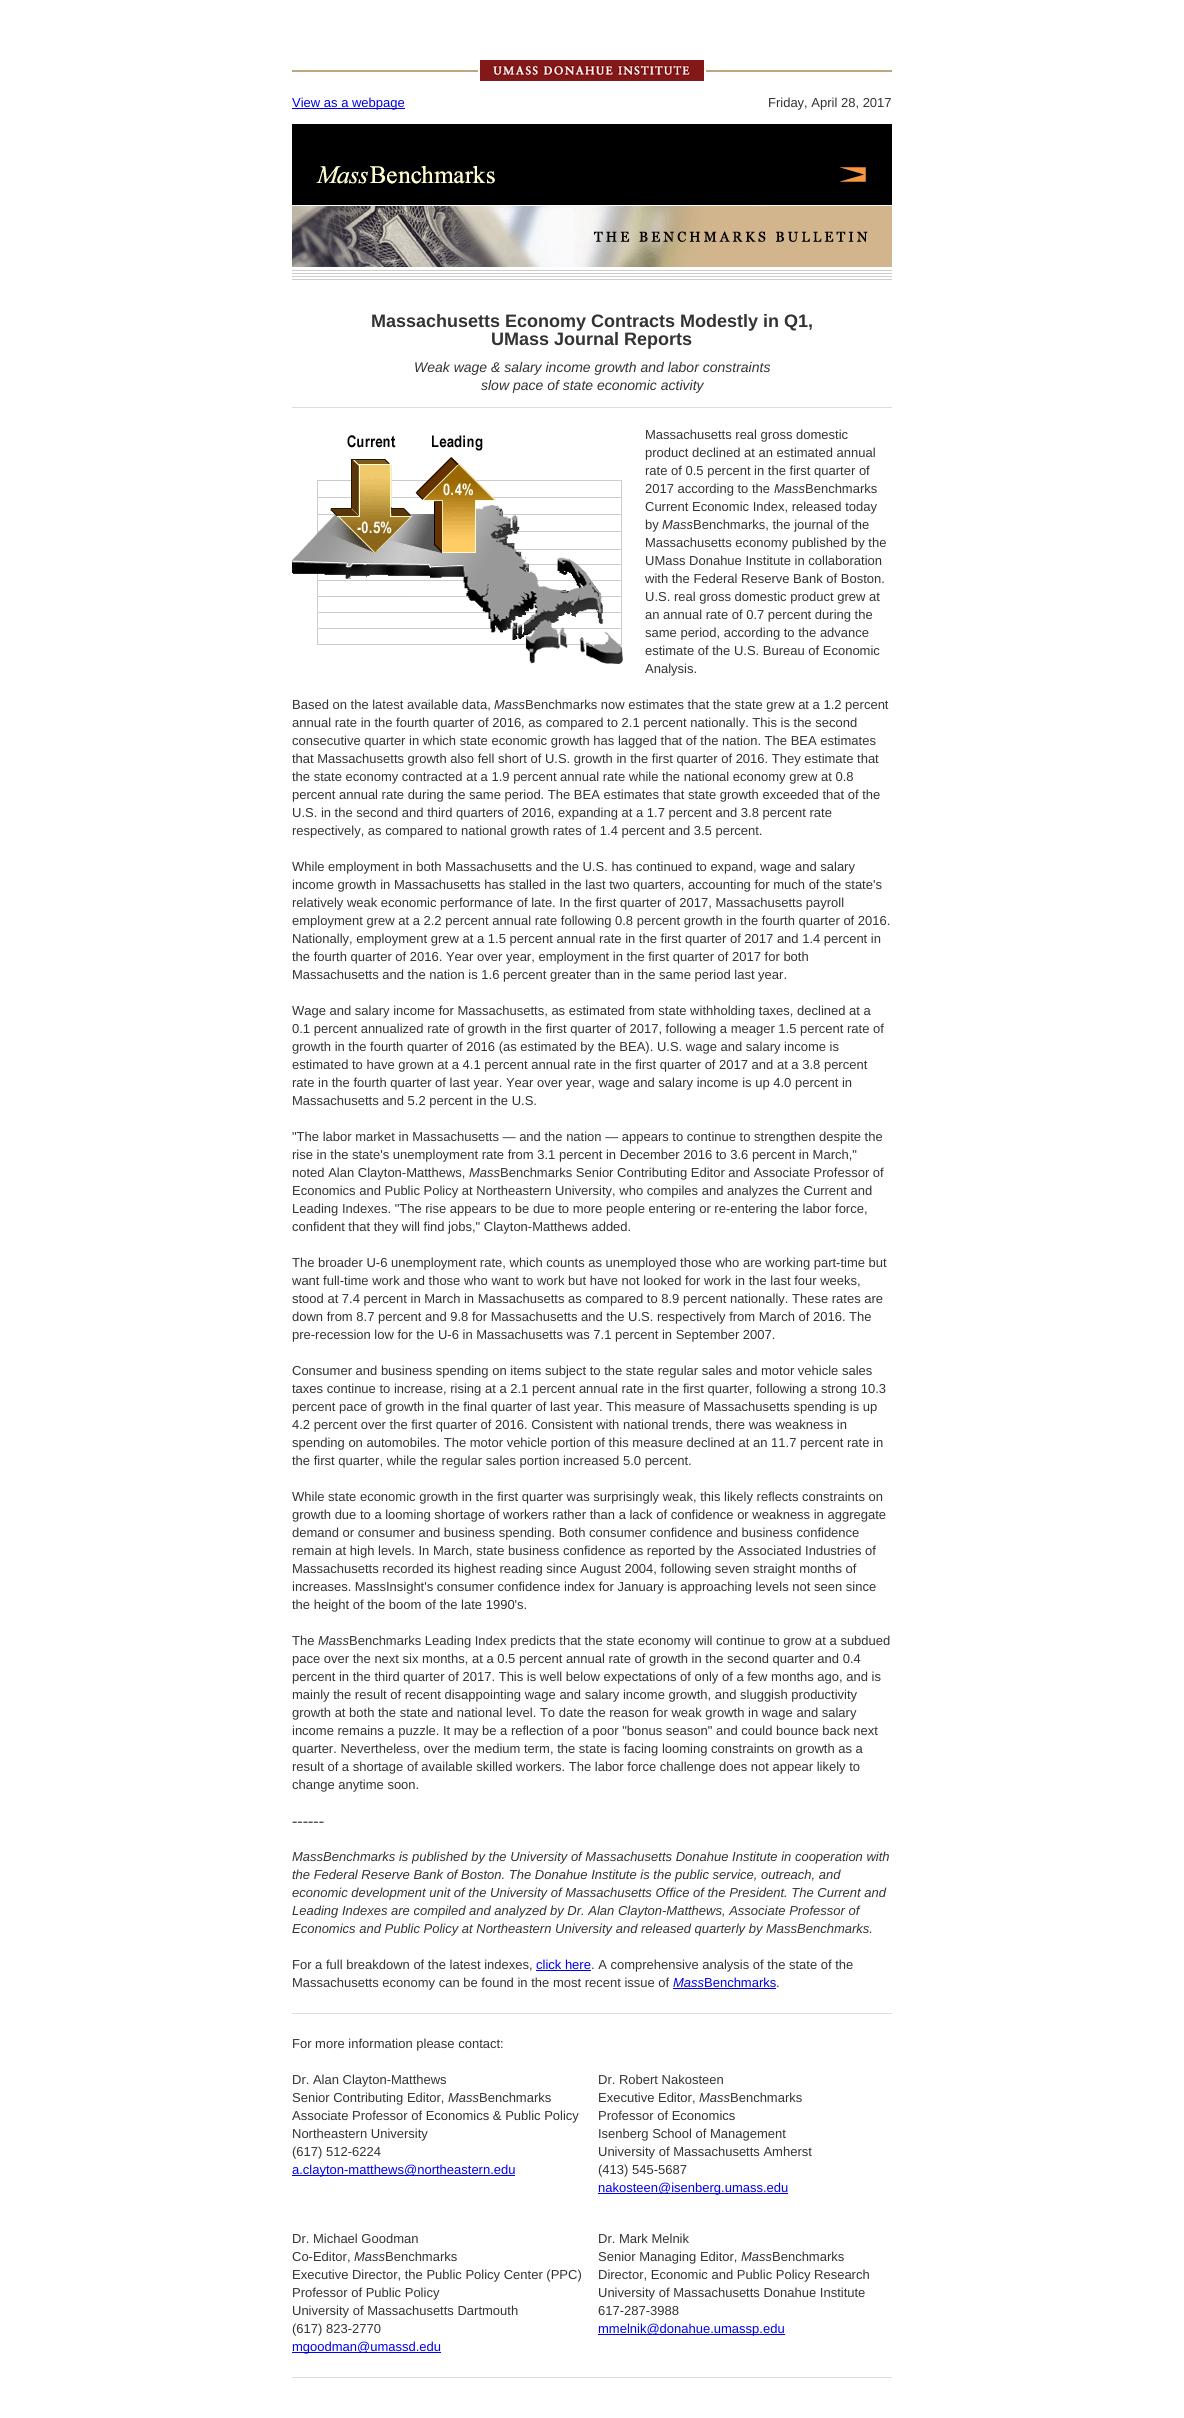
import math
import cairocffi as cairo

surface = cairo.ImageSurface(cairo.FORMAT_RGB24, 1184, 2418)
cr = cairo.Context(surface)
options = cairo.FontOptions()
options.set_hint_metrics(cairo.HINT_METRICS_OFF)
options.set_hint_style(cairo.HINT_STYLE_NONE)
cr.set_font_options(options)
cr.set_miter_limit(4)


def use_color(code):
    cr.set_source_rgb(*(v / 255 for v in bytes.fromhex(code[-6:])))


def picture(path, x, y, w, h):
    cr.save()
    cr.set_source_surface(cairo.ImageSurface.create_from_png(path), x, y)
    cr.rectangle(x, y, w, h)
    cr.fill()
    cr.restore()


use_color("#ffffff")
cr.paint()
picture("img1.png", 292, 60, 600, 21)
use_color("#0000ee")
cr.rectangle(292, 108, 113, 1)
cr.fill()
cr.select_font_face("Liberation Sans")
cr.set_font_size(13)
cr.move_to(292, 107)
cr.show_text("View as a webpage")
use_color("#333333")
cr.move_to(768, 107)
cr.show_text("Friday, April 28, 2017")
picture("img2.png", 292, 124, 600, 156)
cr.select_font_face("Liberation Sans", cairo.FONT_SLANT_NORMAL, cairo.FONT_WEIGHT_BOLD)
cr.set_font_size(18)
cr.move_to(371, 327)
cr.show_text("Massachusetts Economy Contracts Modestly in Q1,")
cr.move_to(491, 345)
cr.show_text("UMass Journal Reports")
cr.select_font_face("Liberation Sans", cairo.FONT_SLANT_ITALIC)
cr.set_font_size(14)
cr.move_to(414, 372)
cr.show_text("Weak wage & salary income growth and labor constraints")
cr.move_to(481, 390)
cr.show_text("slow pace of state economic activity")
use_color("#dddddd")
cr.rectangle(292, 407, 600, 1)
cr.fill()
picture("img3.png", 292, 435, 331, 229)
cr.select_font_face("Liberation Sans")
cr.set_font_size(13)
use_color("#333333")
cr.move_to(645, 439)
cr.show_text("Massachusetts real gross domestic")
cr.move_to(645, 457)
cr.show_text("product declined at an estimated annual")
cr.move_to(645, 475)
cr.show_text("rate of 0.5 percent in the first quarter of")
cr.move_to(645, 493)
cr.show_text("2017 according to the")
cr.select_font_face("Liberation Sans", cairo.FONT_SLANT_ITALIC)
cr.move_to(774, 493)
cr.show_text("Mass")
cr.select_font_face("Liberation Sans")
cr.move_to(805, 493)
cr.show_text("Benchmarks")
cr.move_to(645, 511)
cr.show_text("Current Economic Index, released today")
cr.move_to(645, 529)
cr.show_text("by")
cr.select_font_face("Liberation Sans", cairo.FONT_SLANT_ITALIC)
cr.move_to(662, 529)
cr.show_text("Mass")
cr.select_font_face("Liberation Sans")
cr.move_to(693, 529)
cr.show_text("Benchmarks, the journal of the")
cr.move_to(645, 547)
cr.show_text("Massachusetts economy published by the")
cr.move_to(645, 565)
cr.show_text("UMass Donahue Institute in collaboration")
cr.move_to(645, 583)
cr.show_text("with the Federal Reserve Bank of Boston.")
cr.move_to(645, 601)
cr.show_text("U.S. real gross domestic product grew at")
cr.move_to(645, 619)
cr.show_text("an annual rate of 0.7 percent during the")
cr.move_to(645, 637)
cr.show_text("same period, according to the advance")
cr.move_to(645, 655)
cr.show_text("estimate of the U.S. Bureau of Economic")
cr.move_to(645, 673)
cr.show_text("Analysis.")
cr.move_to(292, 709)
cr.show_text("Based on the latest available data,")
cr.select_font_face("Liberation Sans", cairo.FONT_SLANT_ITALIC)
cr.move_to(494, 709)
cr.show_text("Mass")
cr.select_font_face("Liberation Sans")
cr.move_to(525, 709)
cr.show_text("Benchmarks now estimates that the state grew at a 1.2 percent")
cr.move_to(292, 727)
cr.show_text("annual rate in the fourth quarter of 2016, as compared to 2.1 percent nationally. This is the second")
cr.move_to(292, 745)
cr.show_text("consecutive quarter in which state economic growth has lagged that of the nation. The BEA estimates")
cr.move_to(292, 763)
cr.show_text("that Massachusetts growth also fell short of U.S. growth in the first quarter of 2016. They estimate that")
cr.move_to(292, 781)
cr.show_text("the state economy contracted at a 1.9 percent annual rate while the national economy grew at 0.8")
cr.move_to(292, 799)
cr.show_text("percent annual rate during the same period. The BEA estimates that state growth exceeded that of the")
cr.move_to(292, 817)
cr.show_text("U.S. in the second and third quarters of 2016, expanding at a 1.7 percent and 3.8 percent rate")
cr.move_to(292, 835)
cr.show_text("respectively, as compared to national growth rates of 1.4 percent and 3.5 percent.")
cr.move_to(292, 871)
cr.show_text("While employment in both Massachusetts and the U.S. has continued to expand, wage and salary")
cr.move_to(292, 889)
cr.show_text("income growth in Massachusetts has stalled in the last two quarters, accounting for much of the state's")
cr.move_to(292, 907)
cr.show_text("relatively weak economic performance of late. In the first quarter of 2017, Massachusetts payroll")
cr.move_to(292, 925)
cr.show_text("employment grew at a 2.2 percent annual rate following 0.8 percent growth in the fourth quarter of 2016.")
cr.move_to(292, 943)
cr.show_text("Nationally, employment grew at a 1.5 percent annual rate in the first quarter of 2017 and 1.4 percent in")
cr.move_to(292, 961)
cr.show_text("the fourth quarter of 2016. Year over year, employment in the first quarter of 2017 for both")
cr.move_to(292, 979)
cr.show_text("Massachusetts and the nation is 1.6 percent greater than in the same period last year.")
cr.move_to(292, 1015)
cr.show_text("Wage and salary income for Massachusetts, as estimated from state withholding taxes, declined at a")
cr.move_to(292, 1033)
cr.show_text("0.1 percent annualized rate of growth in the first quarter of 2017, following a meager 1.5 percent rate of")
cr.move_to(292, 1051)
cr.show_text("growth in the fourth quarter of 2016 (as estimated by the BEA). U.S. wage and salary income is")
cr.move_to(292, 1069)
cr.show_text("estimated to have grown at a 4.1 percent annual rate in the first quarter of 2017 and at a 3.8 percent")
cr.move_to(292, 1087)
cr.show_text("rate in the fourth quarter of last year. Year over year, wage and salary income is up 4.0 percent in")
cr.move_to(292, 1105)
cr.show_text("Massachusetts and 5.2 percent in the U.S.")
cr.move_to(292, 1141)
cr.show_text("\"The labor market in Massachusetts — and the nation — appears to continue to strengthen despite the")
cr.move_to(292, 1159)
cr.show_text("rise in the state's unemployment rate from 3.1 percent in December 2016 to 3.6 percent in March,\"")
cr.move_to(292, 1177)
cr.show_text("noted Alan Clayton-Matthews,")
cr.select_font_face("Liberation Sans", cairo.FONT_SLANT_ITALIC)
cr.move_to(469, 1177)
cr.show_text("Mass")
cr.select_font_face("Liberation Sans")
cr.move_to(500, 1177)
cr.show_text("Benchmarks Senior Contributing Editor and Associate Professor of")
cr.move_to(292, 1195)
cr.show_text("Economics and Public Policy at Northeastern University, who compiles and analyzes the Current and")
cr.move_to(292, 1213)
cr.show_text("Leading Indexes. \"The rise appears to be due to more people entering or re-entering the labor force,")
cr.move_to(292, 1231)
cr.show_text("confident that they will find jobs,\" Clayton-Matthews added.")
cr.move_to(292, 1267)
cr.show_text("The broader U-6 unemployment rate, which counts as unemployed those who are working part-time but")
cr.move_to(292, 1285)
cr.show_text("want full-time work and those who want to work but have not looked for work in the last four weeks,")
cr.move_to(292, 1303)
cr.show_text("stood at 7.4 percent in March in Massachusetts as compared to 8.9 percent nationally. These rates are")
cr.move_to(292, 1321)
cr.show_text("down from 8.7 percent and 9.8 for Massachusetts and the U.S. respectively from March of 2016. The")
cr.move_to(292, 1339)
cr.show_text("pre-recession low for the U-6 in Massachusetts was 7.1 percent in September 2007.")
cr.move_to(292, 1375)
cr.show_text("Consumer and business spending on items subject to the state regular sales and motor vehicle sales")
cr.move_to(292, 1393)
cr.show_text("taxes continue to increase, rising at a 2.1 percent annual rate in the first quarter, following a strong 10.3")
cr.move_to(292, 1411)
cr.show_text("percent pace of growth in the final quarter of last year. This measure of Massachusetts spending is up")
cr.move_to(292, 1429)
cr.show_text("4.2 percent over the first quarter of 2016. Consistent with national trends, there was weakness in")
cr.move_to(292, 1447)
cr.show_text("spending on automobiles. The motor vehicle portion of this measure declined at an 11.7 percent rate in")
cr.move_to(292, 1465)
cr.show_text("the first quarter, while the regular sales portion increased 5.0 percent.")
cr.move_to(292, 1501)
cr.show_text("While state economic growth in the first quarter was surprisingly weak, this likely reflects constraints on")
cr.move_to(292, 1519)
cr.show_text("growth due to a looming shortage of workers rather than a lack of confidence or weakness in aggregate")
cr.move_to(292, 1537)
cr.show_text("demand or consumer and business spending. Both consumer confidence and business confidence")
cr.move_to(292, 1555)
cr.show_text("remain at high levels. In March, state business confidence as reported by the Associated Industries of")
cr.move_to(292, 1573)
cr.show_text("Massachusetts recorded its highest reading since August 2004, following seven straight months of")
cr.move_to(292, 1591)
cr.show_text("increases. MassInsight's consumer confidence index for January is approaching levels not seen since")
cr.move_to(292, 1609)
cr.show_text("the height of the boom of the late 1990's.")
cr.move_to(292, 1645)
cr.show_text("The")
cr.select_font_face("Liberation Sans", cairo.FONT_SLANT_ITALIC)
cr.move_to(318, 1645)
cr.show_text("Mass")
cr.select_font_face("Liberation Sans")
cr.move_to(349, 1645)
cr.show_text("Benchmarks Leading Index predicts that the state economy will continue to grow at a subdued")
cr.move_to(292, 1663)
cr.show_text("pace over the next six months, at a 0.5 percent annual rate of growth in the second quarter and 0.4")
cr.move_to(292, 1681)
cr.show_text("percent in the third quarter of 2017. This is well below expectations of only of a few months ago, and is")
cr.move_to(292, 1699)
cr.show_text("mainly the result of recent disappointing wage and salary income growth, and sluggish productivity")
cr.move_to(292, 1717)
cr.show_text("growth at both the state and national level. To date the reason for weak growth in wage and salary")
cr.move_to(292, 1735)
cr.show_text("income remains a puzzle. It may be a reflection of a poor \"bonus season\" and could bounce back next")
cr.move_to(292, 1753)
cr.show_text("quarter. Nevertheless, over the medium term, the state is facing looming constraints on growth as a")
cr.move_to(292, 1771)
cr.show_text("result of a shortage of available skilled workers. The labor force challenge does not appear likely to")
cr.move_to(292, 1789)
cr.show_text("change anytime soon.")
cr.select_font_face("Liberation Serif")
cr.set_font_size(16)
cr.move_to(292, 1826)
cr.show_text("------")
cr.select_font_face("Liberation Sans", cairo.FONT_SLANT_ITALIC)
cr.set_font_size(13)
cr.move_to(292, 1861)
cr.show_text("MassBenchmarks is published by the University of Massachusetts Donahue Institute in cooperation with")
cr.move_to(292, 1879)
cr.show_text("the Federal Reserve Bank of Boston. The Donahue Institute is the public service, outreach, and")
cr.move_to(292, 1897)
cr.show_text("economic development unit of the University of Massachusetts Office of the President. The Current and")
cr.move_to(292, 1915)
cr.show_text("Leading Indexes are compiled and analyzed by Dr. Alan Clayton-Matthews, Associate Professor of")
cr.move_to(292, 1933)
cr.show_text("Economics and Public Policy at Northeastern University and released quarterly by MassBenchmarks.")
cr.select_font_face("Liberation Sans")
cr.move_to(292, 1969)
cr.show_text("For a full breakdown of the latest indexes,")
use_color("#0000ee")
cr.move_to(536, 1969)
cr.show_text("click here")
use_color("#333333")
cr.move_to(591, 1969)
cr.show_text(". A comprehensive analysis of the state of the")
use_color("#0000ee")
cr.rectangle(536, 1970, 55, 1)
cr.fill()
use_color("#333333")
cr.move_to(292, 1987)
cr.show_text("Massachusetts economy can be found in the most recent issue of")
cr.select_font_face("Liberation Sans", cairo.FONT_SLANT_ITALIC)
use_color("#0000ee")
cr.move_to(673, 1987)
cr.show_text("Mass")
cr.select_font_face("Liberation Sans")
cr.move_to(704, 1987)
cr.show_text("Benchmarks")
use_color("#333333")
cr.move_to(776, 1987)
cr.show_text(".")
use_color("#0000ee")
cr.rectangle(673, 1988, 103, 1)
cr.fill()
use_color("#dddddd")
cr.rectangle(292, 2013, 600, 1)
cr.fill()
use_color("#333333")
cr.move_to(292, 2048)
cr.show_text("For more information please contact:")
cr.move_to(292, 2084)
cr.show_text("Dr. Alan Clayton-Matthews")
cr.move_to(292, 2102)
cr.show_text("Senior Contributing Editor,")
cr.select_font_face("Liberation Sans", cairo.FONT_SLANT_ITALIC)
cr.move_to(448, 2102)
cr.show_text("Mass")
cr.select_font_face("Liberation Sans")
cr.move_to(479, 2102)
cr.show_text("Benchmarks")
cr.move_to(292, 2120)
cr.show_text("Associate Professor of Economics & Public Policy")
cr.move_to(292, 2138)
cr.show_text("Northeastern University")
cr.move_to(292, 2156)
cr.show_text("(617) 512-6224")
use_color("#0000ee")
cr.rectangle(292, 2175, 223, 1)
cr.fill()
cr.move_to(292, 2174)
cr.show_text("a.clayton-matthews@northeastern.edu")
use_color("#333333")
cr.move_to(598, 2084)
cr.show_text("Dr. Robert Nakosteen")
cr.move_to(598, 2102)
cr.show_text("Executive Editor,")
cr.select_font_face("Liberation Sans", cairo.FONT_SLANT_ITALIC)
cr.move_to(699, 2102)
cr.show_text("Mass")
cr.select_font_face("Liberation Sans")
cr.move_to(730, 2102)
cr.show_text("Benchmarks")
cr.move_to(598, 2120)
cr.show_text("Professor of Economics")
cr.move_to(598, 2138)
cr.show_text("Isenberg School of Management")
cr.move_to(598, 2156)
cr.show_text("University of Massachusetts Amherst")
cr.move_to(598, 2174)
cr.show_text("(413) 545-5687")
use_color("#0000ee")
cr.rectangle(598, 2193, 190, 1)
cr.fill()
cr.move_to(598, 2192)
cr.show_text("nakosteen@isenberg.umass.edu")
use_color("#333333")
cr.move_to(292, 2243)
cr.show_text("Dr. Michael Goodman")
cr.move_to(292, 2261)
cr.show_text("Co-Editor,")
cr.select_font_face("Liberation Sans", cairo.FONT_SLANT_ITALIC)
cr.move_to(354, 2261)
cr.show_text("Mass")
cr.select_font_face("Liberation Sans")
cr.move_to(385, 2261)
cr.show_text("Benchmarks")
cr.move_to(292, 2279)
cr.show_text("Executive Director, the Public Policy Center (PPC)")
cr.move_to(292, 2297)
cr.show_text("Professor of Public Policy")
cr.move_to(292, 2315)
cr.show_text("University of Massachusetts Dartmouth")
cr.move_to(292, 2333)
cr.show_text("(617) 823-2770")
use_color("#0000ee")
cr.rectangle(292, 2352, 149, 1)
cr.fill()
cr.move_to(292, 2351)
cr.show_text("mgoodman@umassd.edu")
use_color("#333333")
cr.move_to(598, 2243)
cr.show_text("Dr. Mark Melnik")
cr.move_to(598, 2261)
cr.show_text("Senior Managing Editor,")
cr.select_font_face("Liberation Sans", cairo.FONT_SLANT_ITALIC)
cr.move_to(741, 2261)
cr.show_text("Mass")
cr.select_font_face("Liberation Sans")
cr.move_to(772, 2261)
cr.show_text("Benchmarks")
cr.move_to(598, 2279)
cr.show_text("Director, Economic and Public Policy Research")
cr.move_to(598, 2297)
cr.show_text("University of Massachusetts Donahue Institute")
cr.move_to(598, 2315)
cr.show_text("617-287-3988")
use_color("#0000ee")
cr.rectangle(598, 2334, 187, 1)
cr.fill()
cr.move_to(598, 2333)
cr.show_text("mmelnik@donahue.umassp.edu")
use_color("#dddddd")
cr.rectangle(292, 2377, 600, 1)
cr.fill()
surface.write_to_png("result.png")
